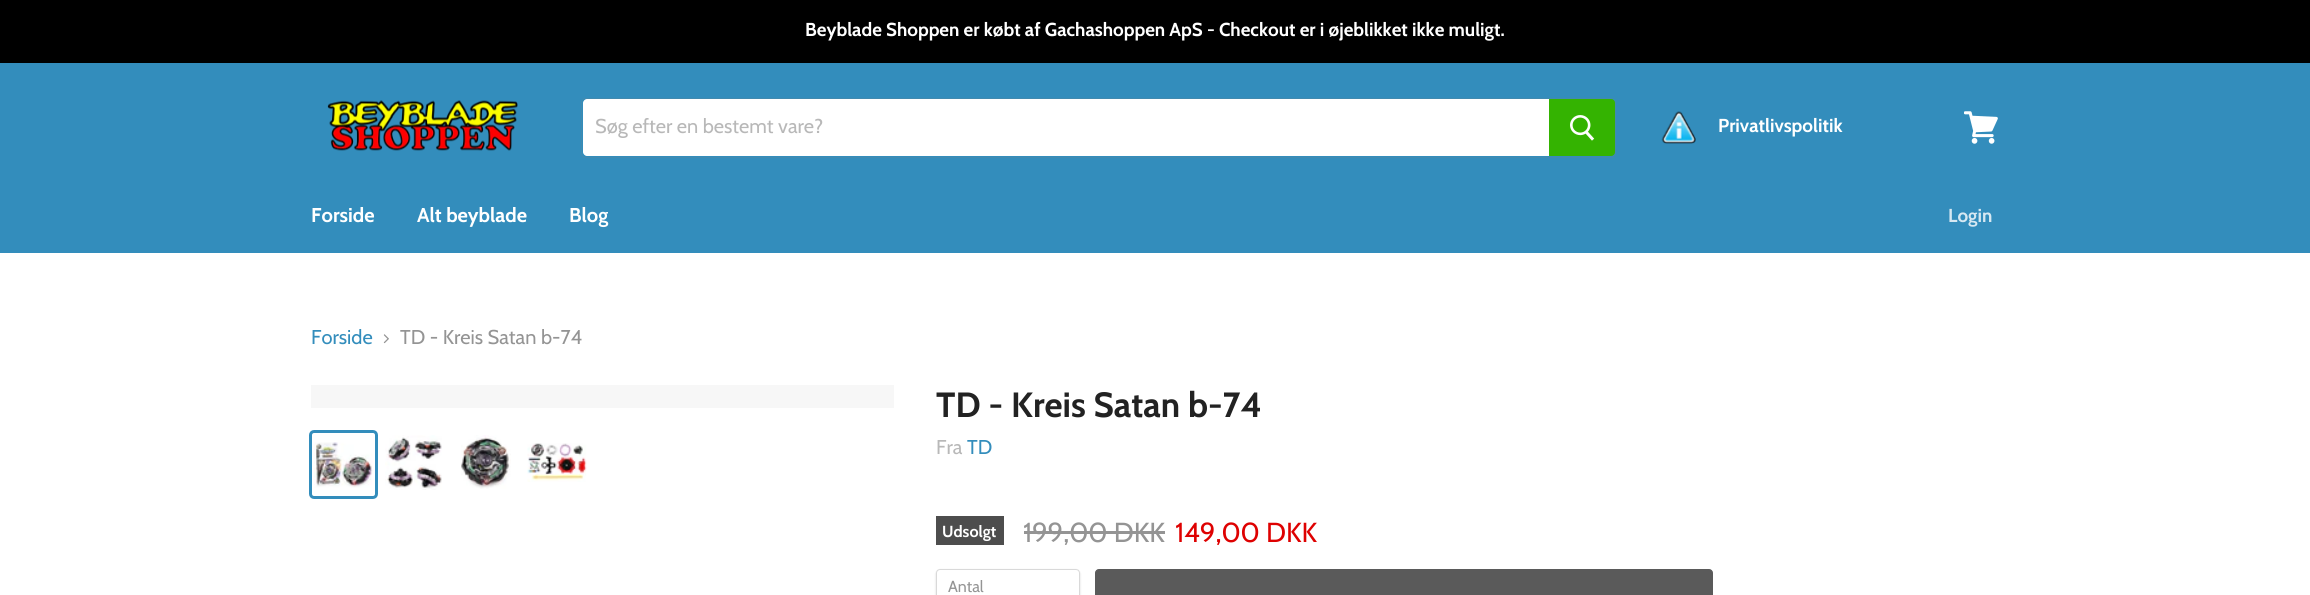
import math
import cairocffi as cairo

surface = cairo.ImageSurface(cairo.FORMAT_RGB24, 2310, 595)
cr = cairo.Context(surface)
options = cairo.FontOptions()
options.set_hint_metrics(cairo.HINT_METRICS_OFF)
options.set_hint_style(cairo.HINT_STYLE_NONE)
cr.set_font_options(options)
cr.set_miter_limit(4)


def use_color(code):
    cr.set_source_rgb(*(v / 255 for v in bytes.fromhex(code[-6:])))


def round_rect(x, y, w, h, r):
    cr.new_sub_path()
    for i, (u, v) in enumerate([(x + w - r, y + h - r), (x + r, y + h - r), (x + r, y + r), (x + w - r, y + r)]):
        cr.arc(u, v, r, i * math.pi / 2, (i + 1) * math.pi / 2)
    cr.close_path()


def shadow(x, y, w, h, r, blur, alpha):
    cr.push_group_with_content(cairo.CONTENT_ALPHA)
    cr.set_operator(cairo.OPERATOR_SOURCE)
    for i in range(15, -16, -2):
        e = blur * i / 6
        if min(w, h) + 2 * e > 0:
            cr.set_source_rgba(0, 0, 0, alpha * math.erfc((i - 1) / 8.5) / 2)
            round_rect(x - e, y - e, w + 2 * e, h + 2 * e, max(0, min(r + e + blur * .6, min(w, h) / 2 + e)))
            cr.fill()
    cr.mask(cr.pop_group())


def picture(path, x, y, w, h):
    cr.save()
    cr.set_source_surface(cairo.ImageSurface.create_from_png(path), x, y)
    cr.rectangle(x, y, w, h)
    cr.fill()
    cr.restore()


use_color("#ffffff")
cr.paint()
use_color("#338dbc")
cr.rectangle(0, 63, 2310, 190)
cr.fill()
use_color("#000000")
cr.rectangle(0, 0, 2310, 63)
cr.fill()
cr.select_font_face("Cabin", cairo.FONT_SLANT_NORMAL, cairo.FONT_WEIGHT_BOLD)
cr.set_font_size(18.75)
use_color("#ffffff")
cr.move_to(805, 36)
cr.show_text("Beyblade Shoppen er købt af Gachashoppen ApS - Checkout er i øjeblikket ikke muligt.")
picture("img1.png", 327, 100, 191, 51)
cr.new_path()
cr.move_to(585, 98.5)
cr.line_to(1611, 98.5)
cr.curve_to(1613.5, 98.5, 1615.5, 100.5, 1615.5, 103)
cr.line_to(1615.5, 153)
cr.curve_to(1615.5, 155.5, 1613.5, 157.5, 1611, 157.5)
cr.line_to(585, 157.5)
cr.curve_to(583, 157.5, 581.5, 156, 581.5, 154)
cr.line_to(581.5, 102)
cr.curve_to(581.5, 100, 583, 98.5, 585, 98.5)
cr.close_path()
cr.set_source_rgba(0.498, 0.498, 0.498, 0.2)
cr.set_line_width(1)
cr.stroke()
use_color("#ffffff")
cr.new_path()
cr.move_to(587, 99)
cr.line_to(1549, 99)
cr.line_to(1549, 156)
cr.line_to(587, 156)
cr.curve_to(585, 156, 583, 154, 583, 152)
cr.line_to(583, 103)
cr.curve_to(583, 101, 585, 99, 587, 99)
cr.close_path()
cr.fill()
cr.select_font_face("Cabin")
cr.set_font_size(20)
use_color("#b8b8b8")
cr.move_to(595, 133)
cr.show_text("Søg efter en bestemt vare?")
use_color("#34b301")
cr.new_path()
cr.move_to(1549.5, 99.5)
cr.line_to(1611, 99.5)
cr.curve_to(1613, 99.5, 1614.5, 101, 1614.5, 103)
cr.line_to(1614.5, 152)
cr.curve_to(1614.5, 154, 1613, 155.5, 1611, 155.5)
cr.line_to(1549.5, 155.5)
cr.close_path()
cr.fill_preserve()
cr.stroke()
picture("img2.png", 1570, 115, 25, 26)
picture("img3.png", 1661, 111, 35, 33)
cr.select_font_face("Cabin", cairo.FONT_SLANT_NORMAL, cairo.FONT_WEIGHT_BOLD)
cr.set_font_size(18.75)
use_color("#ffffff")
cr.move_to(1718, 132)
cr.show_text("Privatlivspolitik")
picture("img4.png", 1964, 111, 34, 33)
cr.set_font_size(20)
cr.move_to(311, 222)
cr.show_text("Forside")
cr.move_to(417, 222)
cr.show_text("Alt beyblade")
cr.move_to(569, 222)
cr.show_text("Blog")
cr.set_font_size(18.75)
use_color("#d6e8f2")
cr.move_to(1948, 222)
cr.show_text("Login")
cr.select_font_face("Cabin")
cr.set_font_size(20)
use_color("#338dbc")
cr.move_to(311, 344)
cr.show_text("Forside")
picture("img5.png", 383, 334, 6, 10)
use_color("#949494")
cr.move_to(400, 344)
cr.show_text("TD - Kreis Satan b-74")
use_color("#f7f7f7")
cr.rectangle(311, 385, 583, 23)
cr.fill()
round_rect(310.5, 431.5, 66, 66, 3.5)
use_color("#338dbc")
cr.set_line_width(3)
cr.stroke()
picture("img6.png", 314, 442, 59, 46)
picture("img7.png", 385, 435, 57, 55)
picture("img8.png", 461, 435, 50, 54)
picture("img9.png", 527, 443, 60, 39)
cr.select_font_face("Cabin", cairo.FONT_SLANT_NORMAL, cairo.FONT_WEIGHT_BOLD)
cr.set_font_size(35)
use_color("#222222")
cr.move_to(936, 417)
cr.show_text("TD - Kreis Satan b-74")
cr.select_font_face("Cabin")
cr.set_font_size(20)
use_color("#b8b8b8")
cr.move_to(936, 454)
cr.show_text("Fra")
use_color("#338dbc")
cr.move_to(967, 454)
cr.show_text("TD")
use_color("#4d4d4d")
cr.rectangle(936, 516, 68, 29)
cr.fill()
cr.select_font_face("Cabin", cairo.FONT_SLANT_NORMAL, cairo.FONT_WEIGHT_BOLD)
cr.set_font_size(16)
use_color("#ffffff")
cr.move_to(942, 537)
cr.show_text("Udsolgt")
cr.select_font_face("Cabin")
cr.set_font_size(27.5)
use_color("#949494")
cr.move_to(1023, 542)
cr.show_text("199,00 DKK")
cr.rectangle(1024, 531, 141, 3)
cr.fill()
use_color("#de0101")
cr.move_to(1175, 542)
cr.show_text("149,00 DKK")
cr.save()
cr.set_fill_rule(cairo.FILL_RULE_EVEN_ODD)
cr.new_path()
cr.move_to(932, 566)
cr.line_to(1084, 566)
cr.line_to(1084, 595)
cr.line_to(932, 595)
cr.close_path()
cr.move_to(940, 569)
cr.line_to(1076, 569)
cr.curve_to(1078, 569, 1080, 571, 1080, 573)
cr.line_to(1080, 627)
cr.curve_to(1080, 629, 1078, 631, 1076, 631)
cr.line_to(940, 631)
cr.curve_to(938, 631, 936, 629, 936, 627)
cr.line_to(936, 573)
cr.curve_to(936, 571, 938, 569, 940, 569)
cr.close_path()
cr.clip()
use_color("#000000")
shadow(936, 570, 144, 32, 4, 1, 0.15)
cr.restore()
round_rect(936.5, 569.5, 143, 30, 3.5)
cr.set_source_rgba(0.498, 0.498, 0.498, 0.3)
cr.set_line_width(1)
cr.stroke()
cr.set_font_size(16)
use_color("#949494")
cr.move_to(948, 592)
cr.show_text("Antal")
use_color("#5a5a5a")
round_rect(1095.5, 569.5, 617, 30, 3.5)
cr.fill_preserve()
cr.stroke()
surface.write_to_png("result.png")
